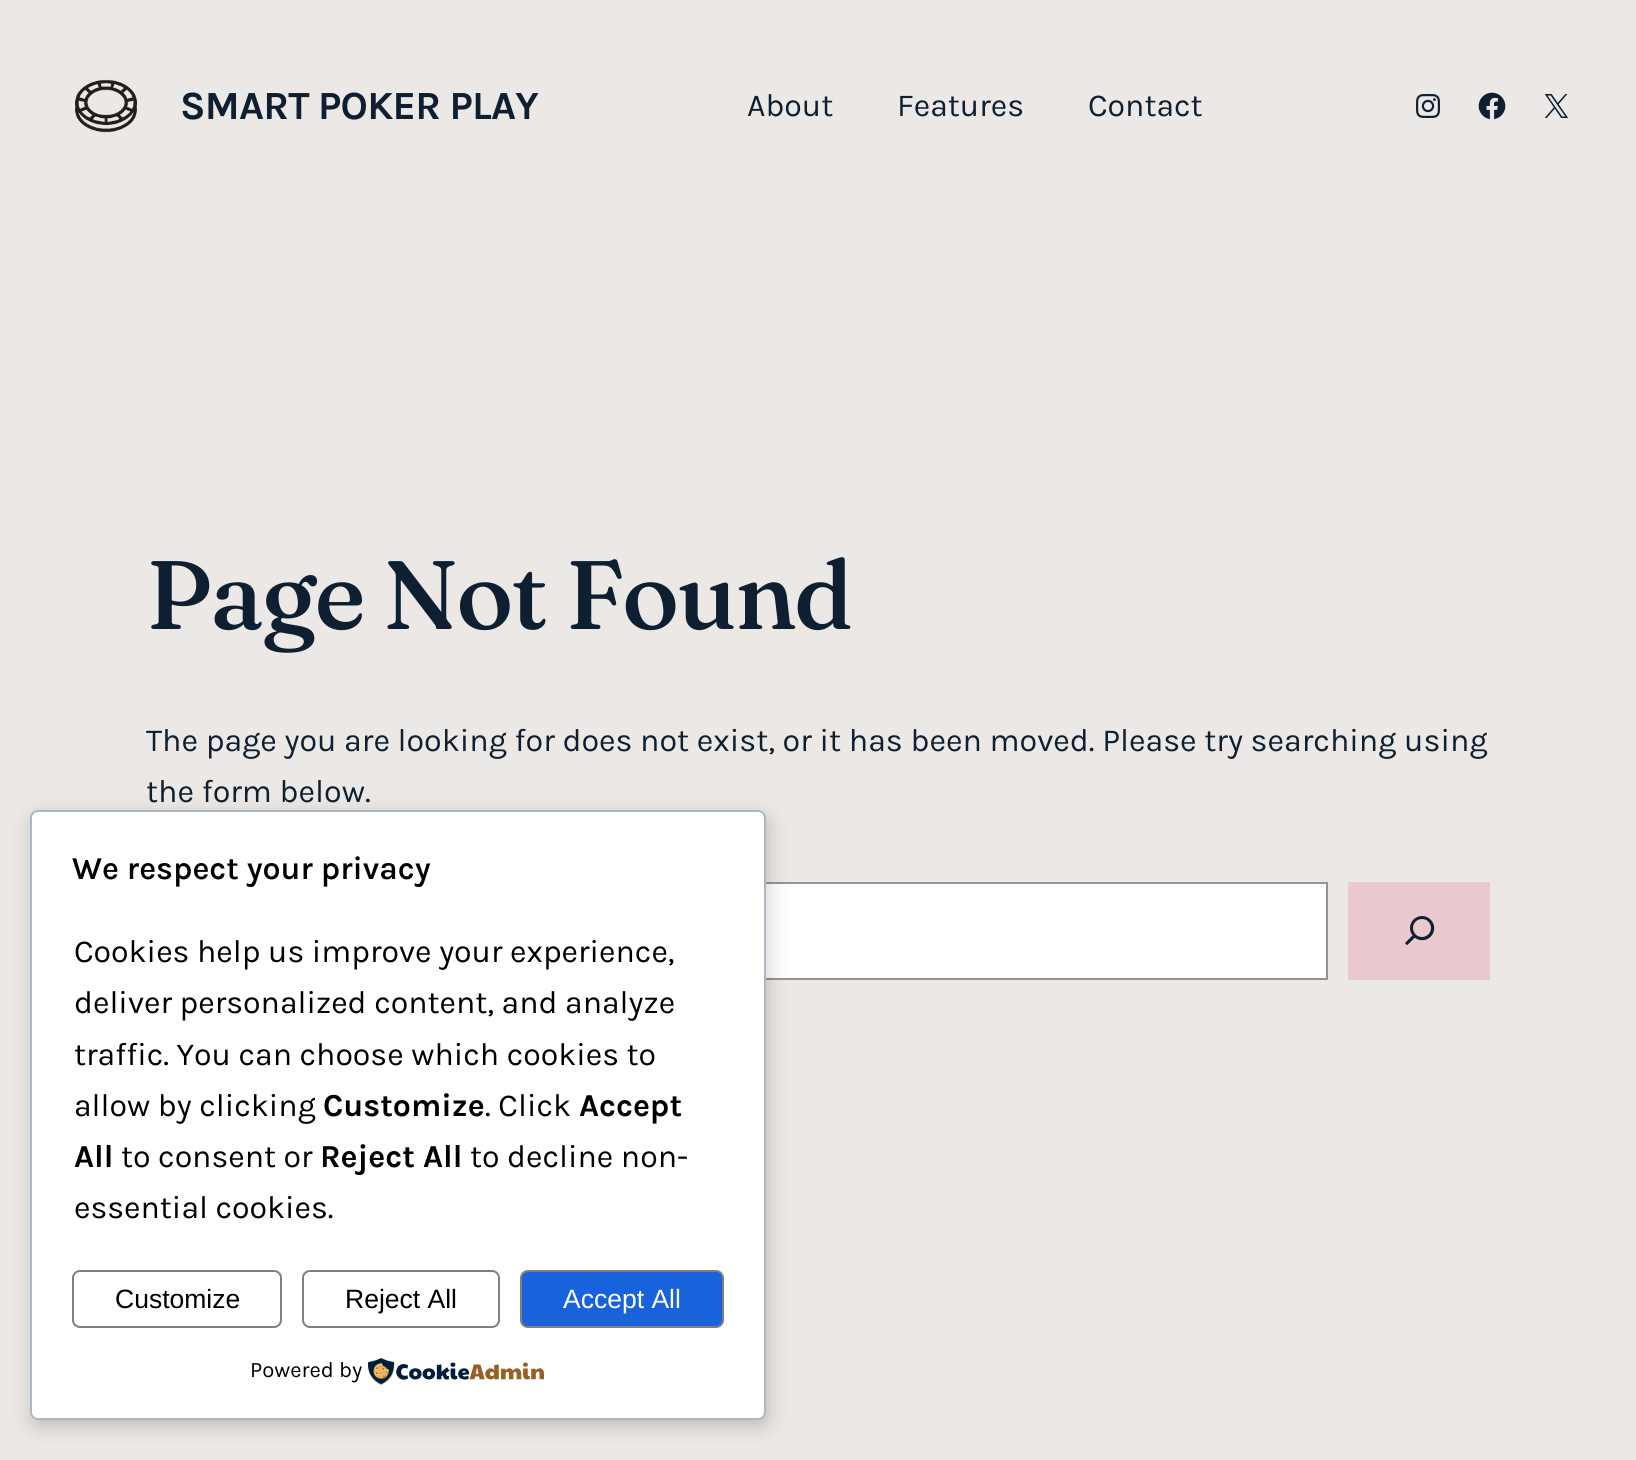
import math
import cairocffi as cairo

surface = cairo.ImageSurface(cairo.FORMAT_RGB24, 1636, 1460)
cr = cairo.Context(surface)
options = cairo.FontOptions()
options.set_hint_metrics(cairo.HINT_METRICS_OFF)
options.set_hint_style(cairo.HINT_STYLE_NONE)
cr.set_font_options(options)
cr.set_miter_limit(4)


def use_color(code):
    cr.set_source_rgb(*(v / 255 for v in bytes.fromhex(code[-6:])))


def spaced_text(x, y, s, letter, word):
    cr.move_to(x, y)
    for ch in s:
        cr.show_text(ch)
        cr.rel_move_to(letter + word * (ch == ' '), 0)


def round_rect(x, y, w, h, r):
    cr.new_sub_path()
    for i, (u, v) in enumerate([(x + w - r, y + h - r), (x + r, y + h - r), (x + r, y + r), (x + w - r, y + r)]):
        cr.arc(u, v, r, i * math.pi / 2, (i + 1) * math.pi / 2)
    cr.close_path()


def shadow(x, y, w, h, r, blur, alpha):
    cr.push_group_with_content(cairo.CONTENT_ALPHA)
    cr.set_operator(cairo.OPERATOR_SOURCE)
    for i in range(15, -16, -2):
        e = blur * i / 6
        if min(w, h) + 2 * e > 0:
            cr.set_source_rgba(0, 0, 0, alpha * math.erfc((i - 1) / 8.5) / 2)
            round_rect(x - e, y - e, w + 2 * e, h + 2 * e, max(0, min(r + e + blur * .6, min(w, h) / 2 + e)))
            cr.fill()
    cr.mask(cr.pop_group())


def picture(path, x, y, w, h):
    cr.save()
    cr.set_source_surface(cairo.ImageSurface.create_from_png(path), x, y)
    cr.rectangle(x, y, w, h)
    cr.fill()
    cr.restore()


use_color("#ece8e5")
cr.paint()
picture("img1.png", 75, 79, 62, 54)
cr.select_font_face("Karla", cairo.FONT_SLANT_NORMAL, cairo.FONT_WEIGHT_BOLD)
cr.set_font_size(40)
use_color("#0e1f32")
spaced_text(180, 119, "SMART POKER PLAY", -0.75, 0)
cr.select_font_face("Karla")
cr.set_font_size(32)
cr.move_to(747, 116)
cr.show_text("About")
cr.move_to(897, 116)
cr.show_text("Features")
cr.move_to(1088, 116)
cr.show_text("Contact")
picture("img2.png", 1416, 94, 24, 24)
picture("img3.png", 1478, 92, 28, 28)
picture("img4.png", 1544, 94, 24, 24)
cr.select_font_face("Fraunces Medium")
cr.set_font_size(97)
spaced_text(146, 629, "Page Not Found", -2, 0)
cr.select_font_face("Karla")
cr.set_font_size(32.15)
cr.move_to(146, 751)
cr.show_text("The page you are looking for does not exist, or it has been moved. Please try searching using")
cr.move_to(146, 802)
cr.show_text("the form below.")
use_color("#ffffff")
cr.rectangle(766, 884, 560, 94)
cr.fill()
cr.rectangle(147, 883, 1180, 96)
use_color("#949494")
cr.stroke()
use_color("#e9c9cd")
cr.rectangle(1348, 882, 142, 98)
cr.fill()
picture("img5.png", 1405, 916, 30, 30)
use_color("#000000")
shadow(32, 816, 736, 610, 8, 10, 0.2)
use_color("#ffffff")
round_rect(31, 811, 734, 608, 7)
cr.fill_preserve()
use_color("#abb8c3")
cr.stroke()
cr.select_font_face("Karla SemiBold")
use_color("#000000")
cr.move_to(72, 879)
cr.show_text("We respect your privacy")
cr.select_font_face("Karla")
cr.set_font_size(32)
cr.move_to(74, 962)
cr.show_text("Cookies help us improve your experience,")
cr.move_to(74, 1013)
cr.show_text("deliver personalized content, and analyze")
cr.move_to(74, 1065)
cr.show_text("traffic. You can choose which cookies to")
cr.move_to(74, 1116)
cr.show_text("allow by clicking")
cr.select_font_face("Karla", cairo.FONT_SLANT_NORMAL, cairo.FONT_WEIGHT_BOLD)
cr.move_to(323, 1116)
cr.show_text("Customize")
cr.select_font_face("Karla")
cr.move_to(485, 1116)
cr.show_text(". Click")
cr.select_font_face("Karla", cairo.FONT_SLANT_NORMAL, cairo.FONT_WEIGHT_BOLD)
cr.move_to(579, 1116)
cr.show_text("Accept")
cr.move_to(74, 1167)
cr.show_text("All")
cr.select_font_face("Karla")
cr.move_to(121, 1167)
cr.show_text("to consent or")
cr.select_font_face("Karla", cairo.FONT_SLANT_NORMAL, cairo.FONT_WEIGHT_BOLD)
cr.move_to(320, 1167)
cr.show_text("Reject All")
cr.select_font_face("Karla")
cr.move_to(470, 1167)
cr.show_text("to decline non-")
cr.move_to(74, 1218)
cr.show_text("essential cookies.")
round_rect(73, 1271, 208, 56, 7)
use_color("#808080")
cr.stroke()
cr.select_font_face("Liberation Sans")
cr.set_font_size(26.5)
use_color("#000000")
cr.move_to(115, 1308)
cr.show_text("Customize")
round_rect(303, 1271, 196, 56, 7)
use_color("#808080")
cr.stroke()
use_color("#000000")
cr.move_to(345, 1308)
cr.show_text("Reject All")
use_color("#1863dc")
round_rect(521, 1271, 202, 56, 7)
cr.fill_preserve()
use_color("#808080")
cr.stroke()
use_color("#ffffff")
cr.move_to(563, 1308)
cr.show_text("Accept All")
cr.select_font_face("Karla")
cr.set_font_size(22)
use_color("#000000")
cr.move_to(250, 1377)
cr.show_text("Powered by")
picture("img6.png", 368, 1358, 177, 27)
surface.write_to_png("result.png")
